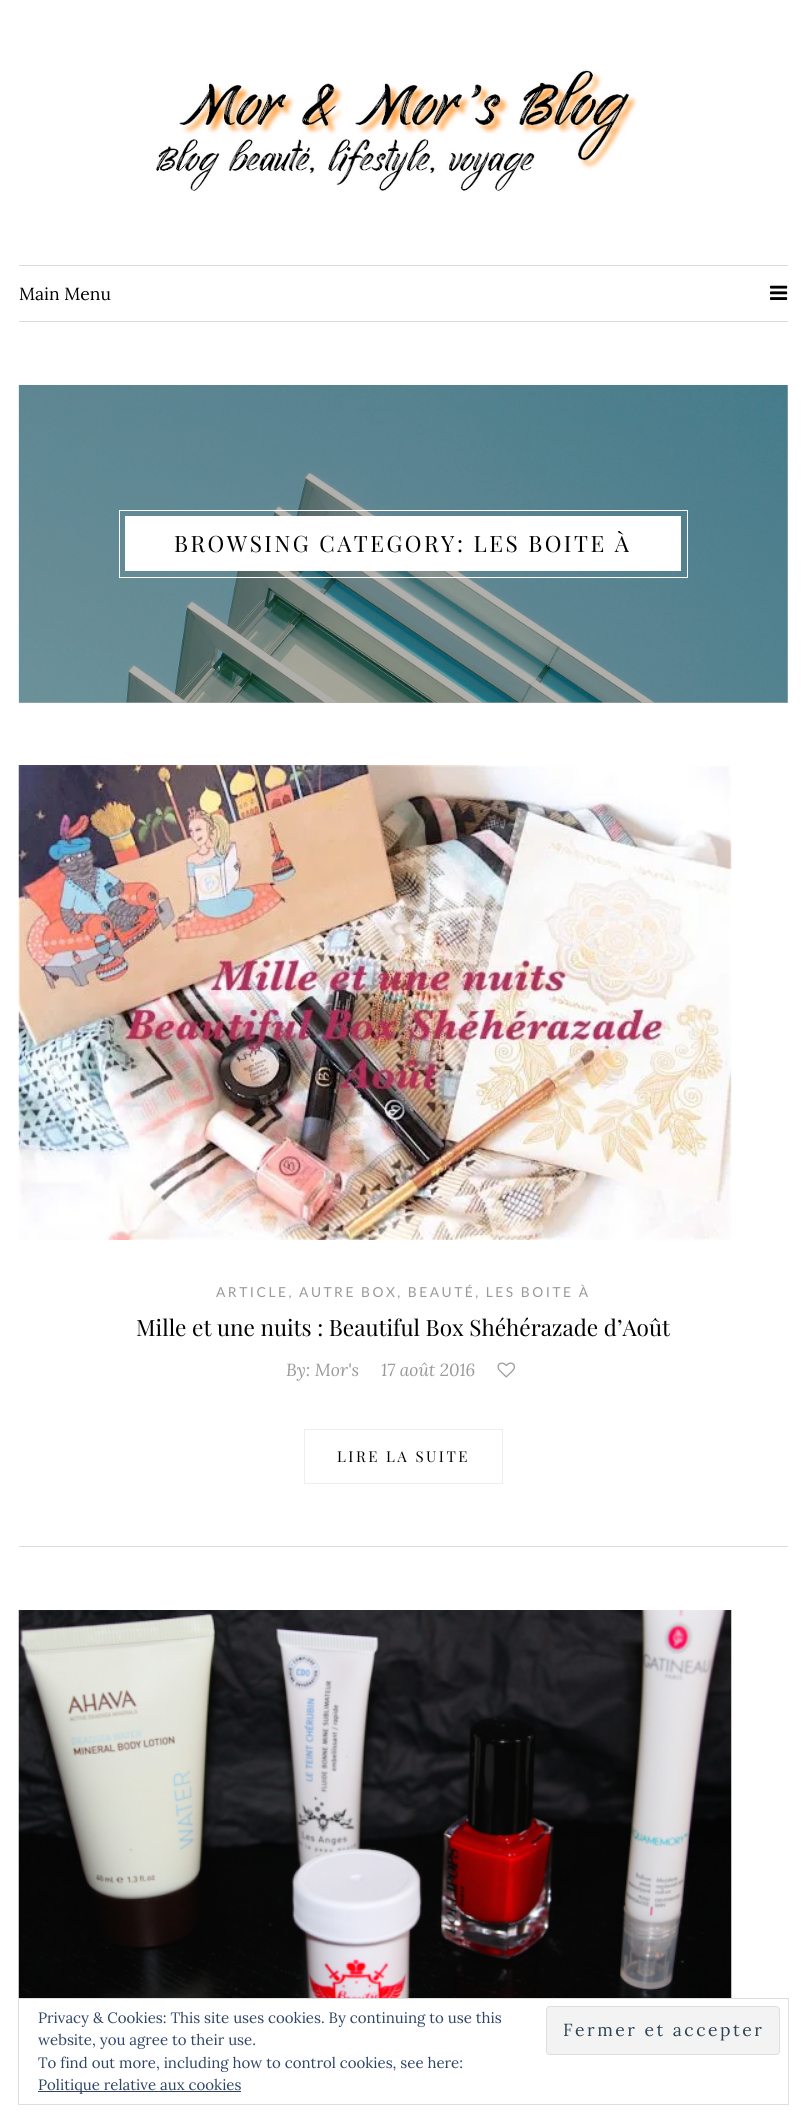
import math
import cairocffi as cairo

surface = cairo.ImageSurface(cairo.FORMAT_RGB24, 806, 2122)
cr = cairo.Context(surface)
options = cairo.FontOptions()
options.set_hint_metrics(cairo.HINT_METRICS_OFF)
options.set_hint_style(cairo.HINT_STYLE_NONE)
cr.set_font_options(options)
cr.set_miter_limit(4)


def use_color(code):
    cr.set_source_rgb(*(v / 255 for v in bytes.fromhex(code[-6:])))


def spaced_text(x, y, s, letter, word):
    cr.move_to(x, y)
    for ch in s:
        cr.show_text(ch)
        cr.rel_move_to(letter + word * (ch == ' '), 0)


def round_rect(x, y, w, h, r):
    cr.new_sub_path()
    for i, (u, v) in enumerate([(x + w - r, y + h - r), (x + r, y + h - r), (x + r, y + r), (x + w - r, y + r)]):
        cr.arc(u, v, r, i * math.pi / 2, (i + 1) * math.pi / 2)
    cr.close_path()


def picture(path, x, y, w, h):
    cr.save()
    cr.set_source_surface(cairo.ImageSurface.create_from_png(path), x, y)
    cr.rectangle(x, y, w, h)
    cr.fill()
    cr.restore()


use_color("#ffffff")
cr.paint()
use_color("#b3b3b3")
cr.rectangle(19, 385, 769, 318)
cr.fill()
picture("img1.png", 156, 69, 482, 122)
use_color("#dddddd")
cr.rectangle(19, 265, 769, 1)
cr.fill()
cr.rectangle(19, 321, 769, 1)
cr.fill()
cr.select_font_face("Lora")
cr.set_font_size(17.5)
use_color("#000000")
cr.move_to(19, 300)
cr.show_text("Main Menu")
picture("img2.png", 770, 285, 18, 15)
picture("img3.png", 18, 385, 770, 318)
use_color("#ffffff")
cr.rectangle(125, 516, 556, 55)
cr.fill()
cr.rectangle(119.5, 510.5, 568, 67)
cr.set_line_width(1)
cr.stroke()
cr.select_font_face("Playfair Display")
cr.set_font_size(22.5)
use_color("#000000")
spaced_text(174, 552, "BROWSING CATEGORY: LES BOITE À", 2.5, 0)
use_color("#dddddd")
cr.rectangle(19, 1546, 769, 1)
cr.fill()
picture("img4.png", 18, 765, 714, 475)
cr.select_font_face("Lato")
cr.set_font_size(13.75)
use_color("#999999")
spaced_text(216, 1297, "ARTICLE, AUTRE BOX, BEAUTÉ, LES BOITE À", 2.5, 0)
cr.select_font_face("Playfair Display")
cr.set_font_size(22.5)
use_color("#000000")
cr.move_to(136, 1336)
cr.show_text("Mille et une nuits : Beautiful Box Shéhérazade d’Août")
cr.select_font_face("Lora", cairo.FONT_SLANT_ITALIC)
cr.set_font_size(17.5)
use_color("#999999")
cr.move_to(286, 1376)
cr.show_text("By: Mor's")
cr.move_to(381, 1376)
cr.show_text("17 août 2016")
picture("img5.png", 497, 1362, 18, 16)
cr.rectangle(304.5, 1429.5, 198, 54)
use_color("#eeeeee")
cr.stroke()
cr.select_font_face("Playfair Display")
cr.set_font_size(15)
use_color("#000000")
spaced_text(337, 1462, "LIRE LA SUITE", 2.5, 0)
picture("img6.png", 18, 1610, 714, 388)
cr.rectangle(18.5, 1998.5, 770, 106)
use_color("#dedede")
cr.stroke()
cr.select_font_face("Lora")
use_color("#2e4467")
cr.move_to(38, 2023)
cr.show_text("Privacy & Cookies: This site uses cookies. By continuing to use this")
cr.move_to(38, 2045)
cr.show_text("website, you agree to their use.")
use_color("#f3f3f3")
round_rect(546.5, 2006.5, 233, 48, 3.5)
cr.fill_preserve()
use_color("#dedede")
cr.stroke()
cr.set_font_size(17.5)
use_color("#2e4453")
spaced_text(563, 2036, "Fermer et accepter", 2.5, 0)
cr.set_font_size(15)
use_color("#2e4467")
cr.move_to(38, 2068)
cr.show_text("To find out more, including how to control cookies, see here:")
cr.rectangle(38, 2091, 203, 1)
cr.fill()
cr.move_to(38, 2090)
cr.show_text("Politique relative aux cookies")
surface.write_to_png("result.png")
